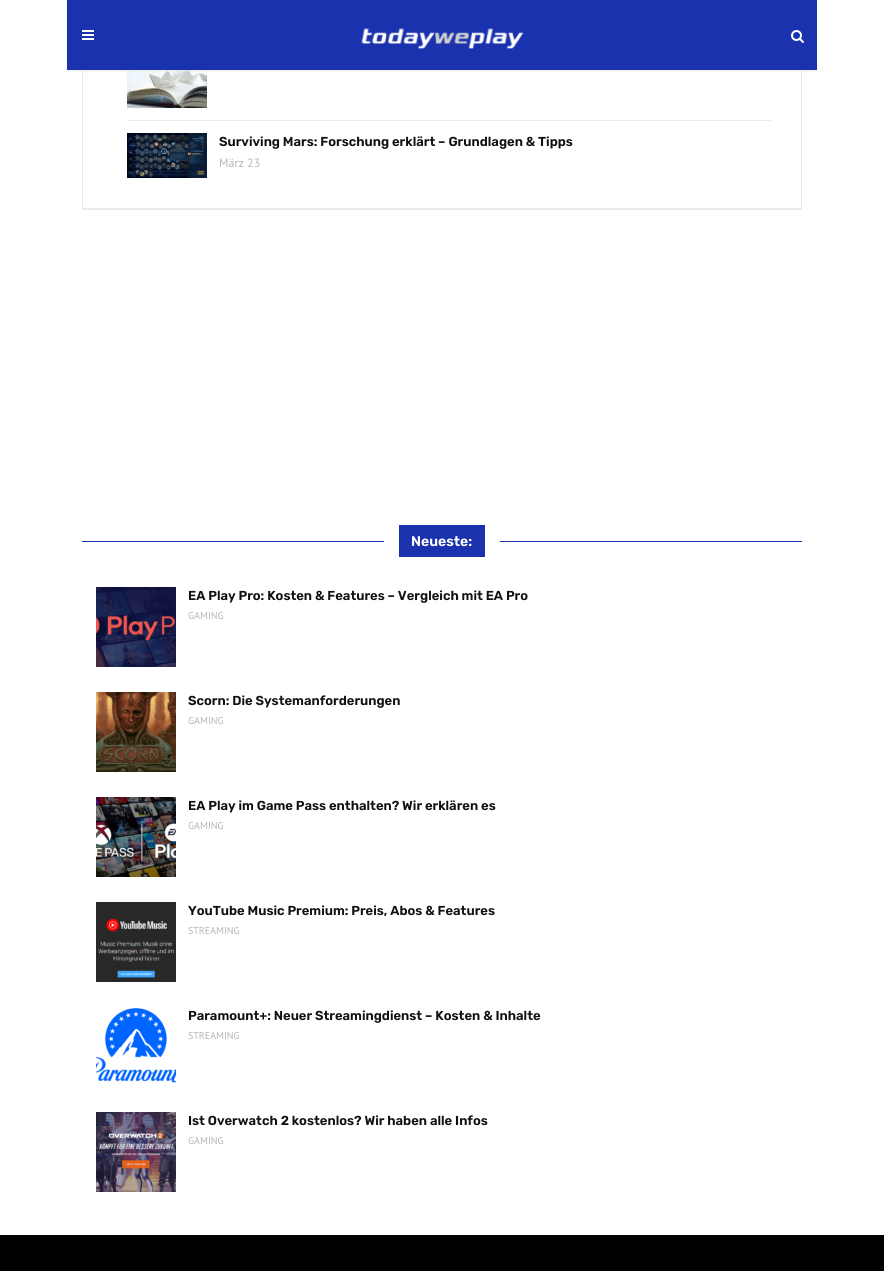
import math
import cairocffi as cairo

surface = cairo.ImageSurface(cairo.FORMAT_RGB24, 884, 1271)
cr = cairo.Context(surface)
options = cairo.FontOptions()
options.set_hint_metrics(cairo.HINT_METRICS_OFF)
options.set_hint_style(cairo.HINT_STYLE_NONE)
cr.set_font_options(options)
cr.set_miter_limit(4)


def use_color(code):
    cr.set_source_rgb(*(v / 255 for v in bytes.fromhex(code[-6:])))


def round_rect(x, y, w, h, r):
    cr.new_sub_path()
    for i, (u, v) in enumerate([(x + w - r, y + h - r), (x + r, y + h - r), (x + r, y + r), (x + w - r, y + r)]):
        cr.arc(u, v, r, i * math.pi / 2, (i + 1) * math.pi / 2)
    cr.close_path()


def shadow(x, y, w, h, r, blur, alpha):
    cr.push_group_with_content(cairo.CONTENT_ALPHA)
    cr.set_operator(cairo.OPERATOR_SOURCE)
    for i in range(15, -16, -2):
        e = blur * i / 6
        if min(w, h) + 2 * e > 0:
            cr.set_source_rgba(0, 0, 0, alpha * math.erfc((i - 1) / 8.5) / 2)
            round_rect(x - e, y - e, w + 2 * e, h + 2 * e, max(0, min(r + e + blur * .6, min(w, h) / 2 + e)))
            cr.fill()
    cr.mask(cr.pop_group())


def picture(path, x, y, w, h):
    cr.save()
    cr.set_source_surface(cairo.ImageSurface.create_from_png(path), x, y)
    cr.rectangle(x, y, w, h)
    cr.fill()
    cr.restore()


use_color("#ffffff")
cr.paint()
cr.rectangle(82.5, -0.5, 719, 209)
use_color("#eaeaea")
cr.set_line_width(1)
cr.stroke()
picture("img3.png", 127, 70, 80, 38)
use_color("#eaeaea")
shadow(67, 1, 750, 70, 0, 1, 1)
use_color("#1a32ad")
cr.rectangle(67, 0, 750, 70)
cr.fill()
use_color("#ffffff")
cr.rectangle(82, 30, 12, 2)
cr.fill()
cr.rectangle(82, 34, 12, 2)
cr.fill()
cr.rectangle(82, 38, 12, 2)
cr.fill()
picture("img1.png", 361, 28, 163, 21)
picture("img2.png", 791, 30, 13, 13)
use_color("#eaeaea")
cr.rectangle(82, 209, 720, 1)
cr.fill()
cr.rectangle(127, 120, 644, 1)
cr.fill()
picture("img4.png", 127, 133, 80, 45)
cr.select_font_face("Rubik SemiBold")
cr.set_font_size(13)
use_color("#111111")
cr.move_to(219, 146)
cr.show_text("Surviving Mars: Forschung erklärt – Grundlagen & Tipps")
cr.select_font_face("PT Sans")
cr.set_font_size(12)
use_color("#b5b5b5")
cr.move_to(219, 167)
cr.show_text("März 23")
use_color("#1a32ad")
cr.rectangle(399, 525, 86, 32)
cr.fill()
cr.rectangle(82, 541, 302, 1)
cr.fill()
cr.select_font_face("Rubik SemiBold")
cr.set_font_size(14)
use_color("#ffffff")
cr.move_to(411, 546)
cr.show_text("Neueste:")
use_color("#1a32ad")
cr.rectangle(500, 541, 302, 1)
cr.fill()
picture("img5.png", 96, 587, 80, 80)
cr.set_font_size(13)
use_color("#111111")
cr.move_to(188, 600)
cr.show_text("EA Play Pro: Kosten & Features – Vergleich mit EA Pro")
cr.select_font_face("PT Sans")
cr.set_font_size(10)
use_color("#b5b5b5")
cr.move_to(188, 619)
cr.show_text("GAMING")
picture("img6.png", 96, 692, 80, 80)
cr.select_font_face("Rubik SemiBold")
cr.set_font_size(13)
use_color("#111111")
cr.move_to(188, 705)
cr.show_text("Scorn: Die Systemanforderungen")
cr.select_font_face("PT Sans")
cr.set_font_size(10)
use_color("#b5b5b5")
cr.move_to(188, 724)
cr.show_text("GAMING")
picture("img7.png", 96, 797, 80, 80)
cr.select_font_face("Rubik SemiBold")
cr.set_font_size(13)
use_color("#111111")
cr.move_to(188, 810)
cr.show_text("EA Play im Game Pass enthalten? Wir erklären es")
cr.select_font_face("PT Sans")
cr.set_font_size(10)
use_color("#b5b5b5")
cr.move_to(188, 829)
cr.show_text("GAMING")
picture("img8.png", 96, 902, 80, 80)
cr.select_font_face("Rubik SemiBold")
cr.set_font_size(13)
use_color("#111111")
cr.move_to(188, 915)
cr.show_text("YouTube Music Premium: Preis, Abos & Features")
cr.select_font_face("PT Sans")
cr.set_font_size(10)
use_color("#b5b5b5")
cr.move_to(188, 934)
cr.show_text("STREAMING")
picture("img9.png", 96, 1007, 80, 76)
cr.select_font_face("Rubik SemiBold")
cr.set_font_size(13)
use_color("#111111")
cr.move_to(188, 1020)
cr.show_text("Paramount+: Neuer Streamingdienst – Kosten & Inhalte")
cr.select_font_face("PT Sans")
cr.set_font_size(10)
use_color("#b5b5b5")
cr.move_to(188, 1039)
cr.show_text("STREAMING")
picture("img10.png", 96, 1112, 80, 80)
cr.select_font_face("Rubik SemiBold")
cr.set_font_size(13)
use_color("#111111")
cr.move_to(188, 1125)
cr.show_text("Ist Overwatch 2 kostenlos? Wir haben alle Infos")
cr.select_font_face("PT Sans")
cr.set_font_size(10)
use_color("#b5b5b5")
cr.move_to(188, 1144)
cr.show_text("GAMING")
use_color("#000000")
cr.rectangle(0, 1235, 884, 36)
cr.fill()
surface.write_to_png("result.png")
